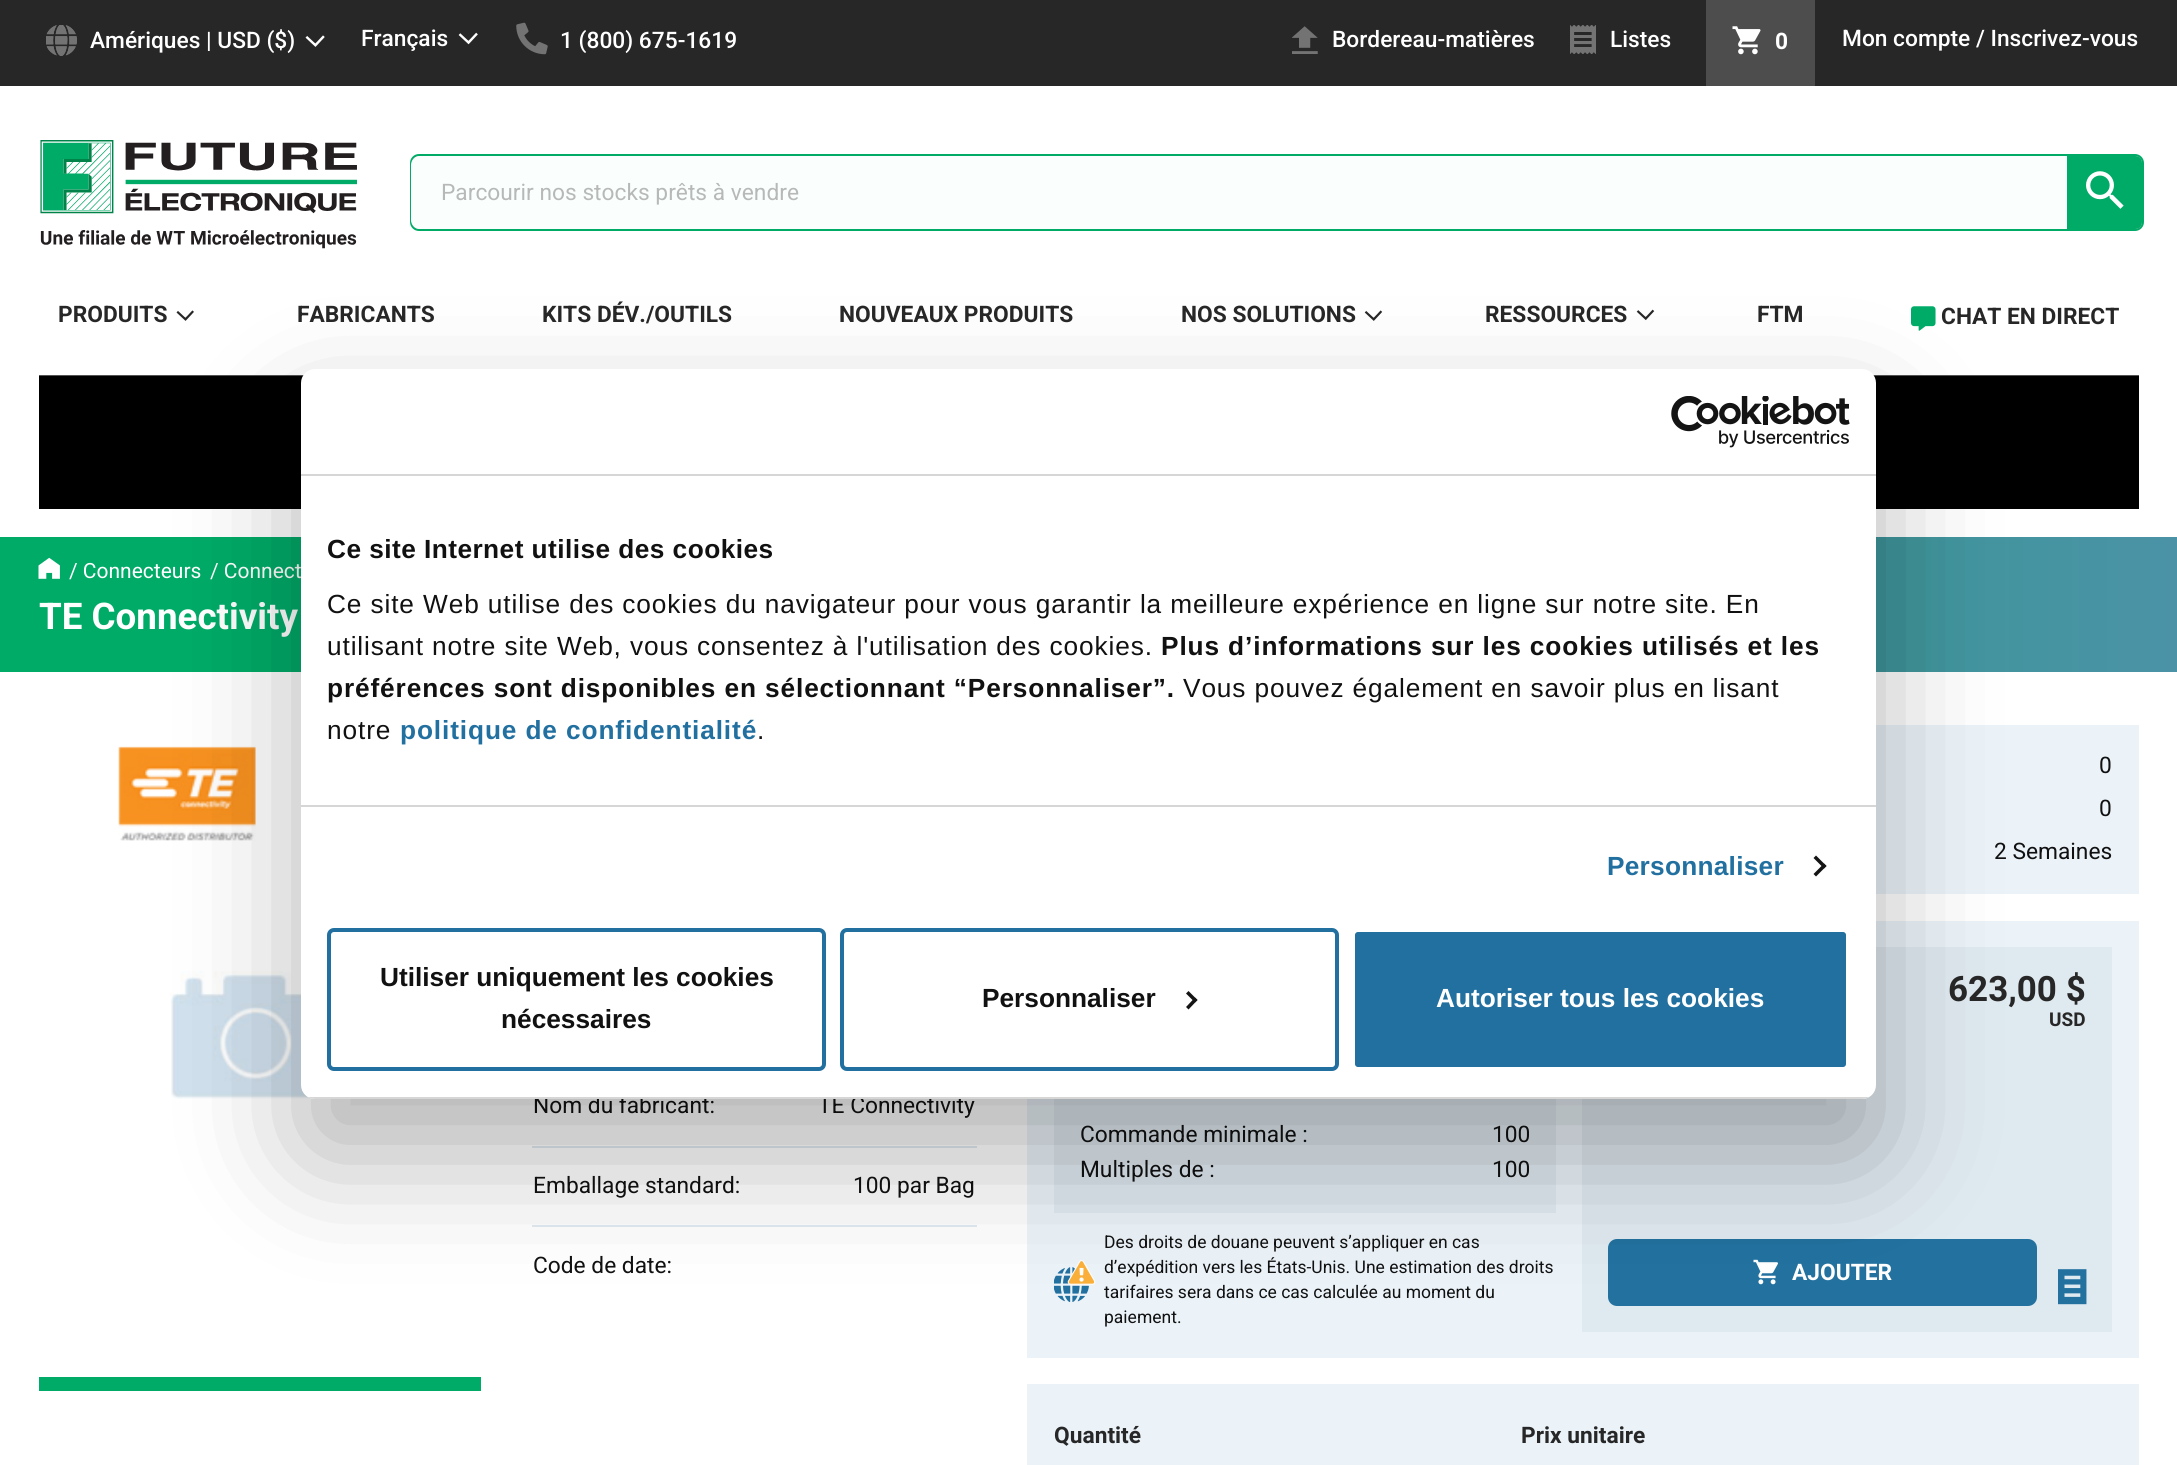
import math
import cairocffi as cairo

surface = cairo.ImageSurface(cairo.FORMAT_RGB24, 2177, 1465)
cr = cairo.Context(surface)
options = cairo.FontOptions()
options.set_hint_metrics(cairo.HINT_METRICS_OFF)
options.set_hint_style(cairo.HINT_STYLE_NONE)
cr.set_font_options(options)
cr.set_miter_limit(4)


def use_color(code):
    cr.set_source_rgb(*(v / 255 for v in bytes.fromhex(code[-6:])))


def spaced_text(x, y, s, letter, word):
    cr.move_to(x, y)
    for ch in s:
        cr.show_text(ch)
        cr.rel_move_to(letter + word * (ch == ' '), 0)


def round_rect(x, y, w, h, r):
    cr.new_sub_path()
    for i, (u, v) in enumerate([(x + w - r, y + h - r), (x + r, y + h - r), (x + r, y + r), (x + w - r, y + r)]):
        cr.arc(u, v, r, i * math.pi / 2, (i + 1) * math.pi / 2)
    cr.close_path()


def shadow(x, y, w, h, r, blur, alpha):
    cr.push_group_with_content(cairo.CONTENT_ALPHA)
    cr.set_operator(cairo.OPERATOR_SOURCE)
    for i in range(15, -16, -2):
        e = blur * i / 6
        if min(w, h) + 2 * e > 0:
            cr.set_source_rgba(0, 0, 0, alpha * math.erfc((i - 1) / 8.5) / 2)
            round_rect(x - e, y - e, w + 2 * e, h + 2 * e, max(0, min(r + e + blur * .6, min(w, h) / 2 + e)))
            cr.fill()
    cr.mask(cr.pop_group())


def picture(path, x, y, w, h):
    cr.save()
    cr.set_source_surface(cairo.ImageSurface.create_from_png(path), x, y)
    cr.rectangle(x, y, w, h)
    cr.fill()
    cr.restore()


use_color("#ffffff")
cr.paint()
use_color("#272727")
cr.rectangle(0, 0, 2177, 86)
cr.fill()
picture("img1.png", 46, 25, 31, 31)
cr.select_font_face("Roboto Medium")
cr.set_font_size(22.75)
use_color("#ffffff")
cr.move_to(90, 48)
cr.show_text("Amériques | USD ($)")
picture("img2.png", 305, 35, 20, 12)
cr.move_to(361, 46)
cr.show_text("Français")
picture("img3.png", 458, 32, 20, 13)
picture("img4.png", 516, 22, 32, 33)
cr.move_to(560, 48)
cr.show_text("1 (800) 675-1619")
picture("img5.png", 1292, 26, 26, 28)
cr.move_to(1332, 47)
cr.show_text("Bordereau-matières")
picture("img6.png", 1570, 25, 26, 29)
cr.move_to(1610, 47)
cr.show_text("Listes")
use_color("#4d4d4d")
cr.rectangle(1706, 0, 109, 86)
cr.fill()
picture("img7.png", 1732, 26, 29, 29)
cr.select_font_face("Roboto", cairo.FONT_SLANT_NORMAL, cairo.FONT_WEIGHT_BOLD)
use_color("#ffffff")
cr.move_to(1775, 49)
cr.show_text("0")
cr.select_font_face("Roboto Medium")
cr.move_to(1842, 46)
cr.show_text("Mon compte / Inscrivez-vous")
picture("img8.png", 40, 140, 317, 109)
use_color("#cccccc")
round_rect(411, 155, 1732, 75, 8)
cr.fill_preserve()
use_color("#00ab67")
cr.stroke()
use_color("#fafffd")
cr.new_path()
cr.move_to(420, 156)
cr.line_to(2067, 156)
cr.line_to(2067, 229)
cr.line_to(420, 229)
cr.curve_to(415, 229, 411, 225, 411, 220)
cr.line_to(411, 165)
cr.curve_to(411, 160, 415, 156, 420, 156)
cr.close_path()
cr.fill()
cr.select_font_face("Roboto")
use_color("#b7b9b8")
cr.move_to(441, 200)
cr.show_text("Parcourir nos stocks prêts à vendre")
use_color("#00ab67")
cr.new_path()
cr.move_to(2067, 156)
cr.line_to(2135, 156)
cr.curve_to(2139, 156, 2142, 159, 2142, 163)
cr.line_to(2142, 222)
cr.curve_to(2142, 226, 2139, 229, 2135, 229)
cr.line_to(2067, 229)
cr.close_path()
cr.fill()
picture("img9.png", 2086, 171, 38, 38)
cr.select_font_face("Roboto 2", cairo.FONT_SLANT_NORMAL, cairo.FONT_WEIGHT_BOLD)
use_color("#272727")
cr.move_to(58, 322)
cr.show_text("PRODUITS")
picture("img10.png", 176, 310, 18, 11)
cr.move_to(297, 322)
cr.show_text("FABRICANTS")
cr.move_to(542, 322)
cr.show_text("KITS DÉV./OUTILS")
cr.move_to(839, 322)
cr.show_text("NOUVEAUX PRODUITS")
cr.move_to(1181, 322)
cr.show_text("NOS SOLUTIONS")
picture("img11.png", 1364, 310, 19, 11)
cr.move_to(1485, 322)
cr.show_text("RESSOURCES")
picture("img12.png", 1636, 309, 19, 12)
cr.move_to(1757, 322)
cr.show_text("FTM")
picture("img13.png", 1911, 306, 25, 25)
cr.move_to(1941, 324)
cr.show_text("CHAT EN DIRECT")
use_color("#535353")
cr.rectangle(39, 375, 2100, 1)
cr.fill()
use_color("#000000")
cr.rectangle(39, 376, 2100, 133)
cr.fill()
gradient = cairo.LinearGradient(0, 605, 2177, 605)
gradient.add_color_stop_rgba(0.19, 0, 0.671, 0.404, 1)
gradient.add_color_stop_rgba(1, 0.294, 0.573, 0.651, 1)
cr.set_source(gradient)
cr.rectangle(0, 537, 2177, 135)
cr.fill()
picture("img14.png", 38, 557, 22, 22)
cr.select_font_face("Roboto")
cr.set_font_size(21)
use_color("#ffffff")
cr.move_to(69, 578)
cr.show_text("/ Connecteurs")
cr.move_to(210, 578)
cr.show_text("/ Connect")
cr.select_font_face("Roboto 2", cairo.FONT_SLANT_NORMAL, cairo.FONT_WEIGHT_BOLD)
cr.set_font_size(36.75)
cr.move_to(39, 629)
cr.show_text("TE Connectivity")
use_color("#00ab67")
cr.rectangle(39, 1377, 442, 14)
cr.fill()
picture("img15.png", 118, 746, 138, 95)
picture("img16.png", 170, 971, 145, 128)
use_color("#dfe9f0")
cr.rectangle(532, 1146, 445, 2)
cr.fill()
cr.select_font_face("Roboto")
cr.set_font_size(22.75)
use_color("#111111")
cr.move_to(533, 1113)
cr.show_text("Nom du fabricant:")
cr.move_to(818, 1113)
cr.show_text("TE Connectivity")
use_color("#dfe9f0")
cr.rectangle(532, 1225, 445, 2)
cr.fill()
use_color("#111111")
cr.move_to(533, 1193)
cr.show_text("Emballage standard:")
cr.move_to(853, 1193)
cr.show_text("100 par Bag")
cr.move_to(533, 1273)
cr.show_text("Code de date:")
use_color("#ebf3f9")
cr.rectangle(1876, 725, 263, 169)
cr.fill()
use_color("#111111")
cr.move_to(2099, 773)
cr.show_text("0")
cr.move_to(2099, 816)
cr.show_text("0")
cr.move_to(1994, 859)
cr.show_text("2 Semaines")
use_color("#ebf3f9")
cr.rectangle(1027, 921, 1112, 437)
cr.fill()
use_color("#dfe9f0")
cr.rectangle(1054, 1099, 502, 114)
cr.fill()
use_color("#111111")
cr.move_to(1080, 1142)
cr.show_text("Commande minimale :")
cr.move_to(1492, 1142)
cr.show_text("100")
cr.move_to(1080, 1177)
cr.show_text("Multiples de :")
cr.move_to(1492, 1177)
cr.show_text("100")
picture("img17.png", 1054, 1260, 42, 42)
cr.set_font_size(17.5)
cr.move_to(1104, 1248)
cr.show_text("Des droits de douane peuvent s’appliquer en cas")
cr.move_to(1104, 1273)
cr.show_text("d’expédition vers les États-Unis. Une estimation des droits")
cr.move_to(1104, 1298)
cr.show_text("tarifaires sera dans ce cas calculée au moment du")
cr.move_to(1104, 1323)
cr.show_text("paiement.")
use_color("#dfe9f0")
cr.rectangle(1582, 947, 530, 385)
cr.fill()
cr.select_font_face("Roboto", cairo.FONT_SLANT_NORMAL, cairo.FONT_WEIGHT_BOLD)
cr.set_font_size(35)
use_color("#272727")
cr.move_to(1948, 1001)
cr.show_text("623,00 $")
cr.set_font_size(19)
cr.move_to(2049, 1026)
cr.show_text("USD")
use_color("#22719f")
round_rect(1609, 1240, 427, 65, 8)
cr.fill_preserve()
cr.stroke()
picture("img18.png", 1753, 1259, 25, 26)
cr.set_font_size(22.75)
use_color("#ffffff")
cr.move_to(1792, 1280)
cr.show_text("AJOUTER")
picture("img19.png", 2058, 1269, 29, 36)
use_color("#ebf3f9")
cr.rectangle(1027, 1384, 1112, 81)
cr.fill()
use_color("#272727")
cr.move_to(1054, 1443)
cr.show_text("Quantité")
cr.move_to(1521, 1443)
cr.show_text("Prix unitaire")
use_color("#000000")
shadow(301, 425, 1575, 730, 14, 59.5, 0.3)
use_color("#ffffff")
round_rect(301, 369, 1575, 730, 14)
cr.fill()
use_color("#d6d6d6")
cr.rectangle(301, 474, 1575, 2)
cr.fill()
picture("img20.png", 1671, 396, 179, 52)
cr.rectangle(301, 805, 1575, 2)
cr.fill()
cr.select_font_face("Liberation Sans", cairo.FONT_SLANT_NORMAL, cairo.FONT_WEIGHT_BOLD)
cr.set_font_size(26.25)
use_color("#111111")
spaced_text(327, 558, "Ce site Internet utilise des cookies", 0.45, 0)
cr.select_font_face("Liberation Sans")
spaced_text(327, 613, "Ce site Web utilise des cookies du navigateur pour vous garantir la meilleure expérience en ligne sur notre site. En", 0.88, 0)
spaced_text(327, 655, "utilisant notre site Web, vous consentez à l'utilisation des cookies.", 0.88, 0)
cr.select_font_face("Liberation Sans", cairo.FONT_SLANT_NORMAL, cairo.FONT_WEIGHT_BOLD)
spaced_text(1161, 655, "Plus d’informations sur les cookies utilisés et les", 0.88, 0)
spaced_text(327, 697, "préférences sont disponibles en sélectionnant “Personnaliser”.", 0.88, 0)
cr.select_font_face("Liberation Sans")
spaced_text(1183, 697, "Vous pouvez également en savoir plus en lisant", 0.88, 0)
spaced_text(327, 739, "notre", 0.88, 0)
cr.select_font_face("Liberation Sans", cairo.FONT_SLANT_NORMAL, cairo.FONT_WEIGHT_BOLD)
use_color("#2270a0")
spaced_text(400, 739, "politique de confidentialité", 0.88, 0)
cr.select_font_face("Liberation Sans")
use_color("#111111")
spaced_text(757, 739, ".", 0.88, 0)
cr.select_font_face("Liberation Sans", cairo.FONT_SLANT_NORMAL, cairo.FONT_WEIGHT_BOLD)
use_color("#2270a0")
spaced_text(1607, 875, "Personnaliser", 0.25, 0)
use_color("#141414")
cr.new_path()
cr.move_to(1816, 855.5)
cr.line_to(1826.5, 866)
cr.line_to(1824, 868.5)
cr.line_to(1813.5, 858)
cr.close_path()
cr.fill()
cr.new_path()
cr.move_to(1824, 863.5)
cr.line_to(1826.5, 866)
cr.line_to(1816, 876.5)
cr.line_to(1813.5, 874)
cr.close_path()
cr.fill()
cr.save()
round_rect(301, 369, 1575, 730, 14)
cr.clip()
use_color("#d6d6d6")
cr.rectangle(301, 1097, 1575, 2)
cr.fill()
cr.restore()
round_rect(329, 930, 495, 139, 5)
use_color("#2270a0")
cr.set_line_width(4)
cr.stroke()
use_color("#111111")
cr.move_to(380, 986)
cr.show_text("Utiliser uniquement les cookies")
cr.move_to(501, 1028)
cr.show_text("nécessaires")
round_rect(842, 930, 495, 139, 5)
use_color("#2270a0")
cr.stroke()
use_color("#111111")
cr.move_to(982, 1007)
cr.show_text("Personnaliser")
use_color("#141414")
cr.new_path()
cr.move_to(1188.5, 991)
cr.line_to(1197.5, 1000)
cr.line_to(1195, 1002.5)
cr.line_to(1186, 993.5)
cr.close_path()
cr.fill()
cr.new_path()
cr.move_to(1195, 997.5)
cr.line_to(1197.5, 1000)
cr.line_to(1188.5, 1009.5)
cr.line_to(1186, 1007)
cr.close_path()
cr.fill()
use_color("#2270a0")
round_rect(1353, 930, 495, 139, 5)
cr.fill_preserve()
use_color("#ffffff")
cr.stroke()
cr.move_to(1436, 1007)
cr.show_text("Autoriser tous les cookies")
surface.write_to_png("result.png")
